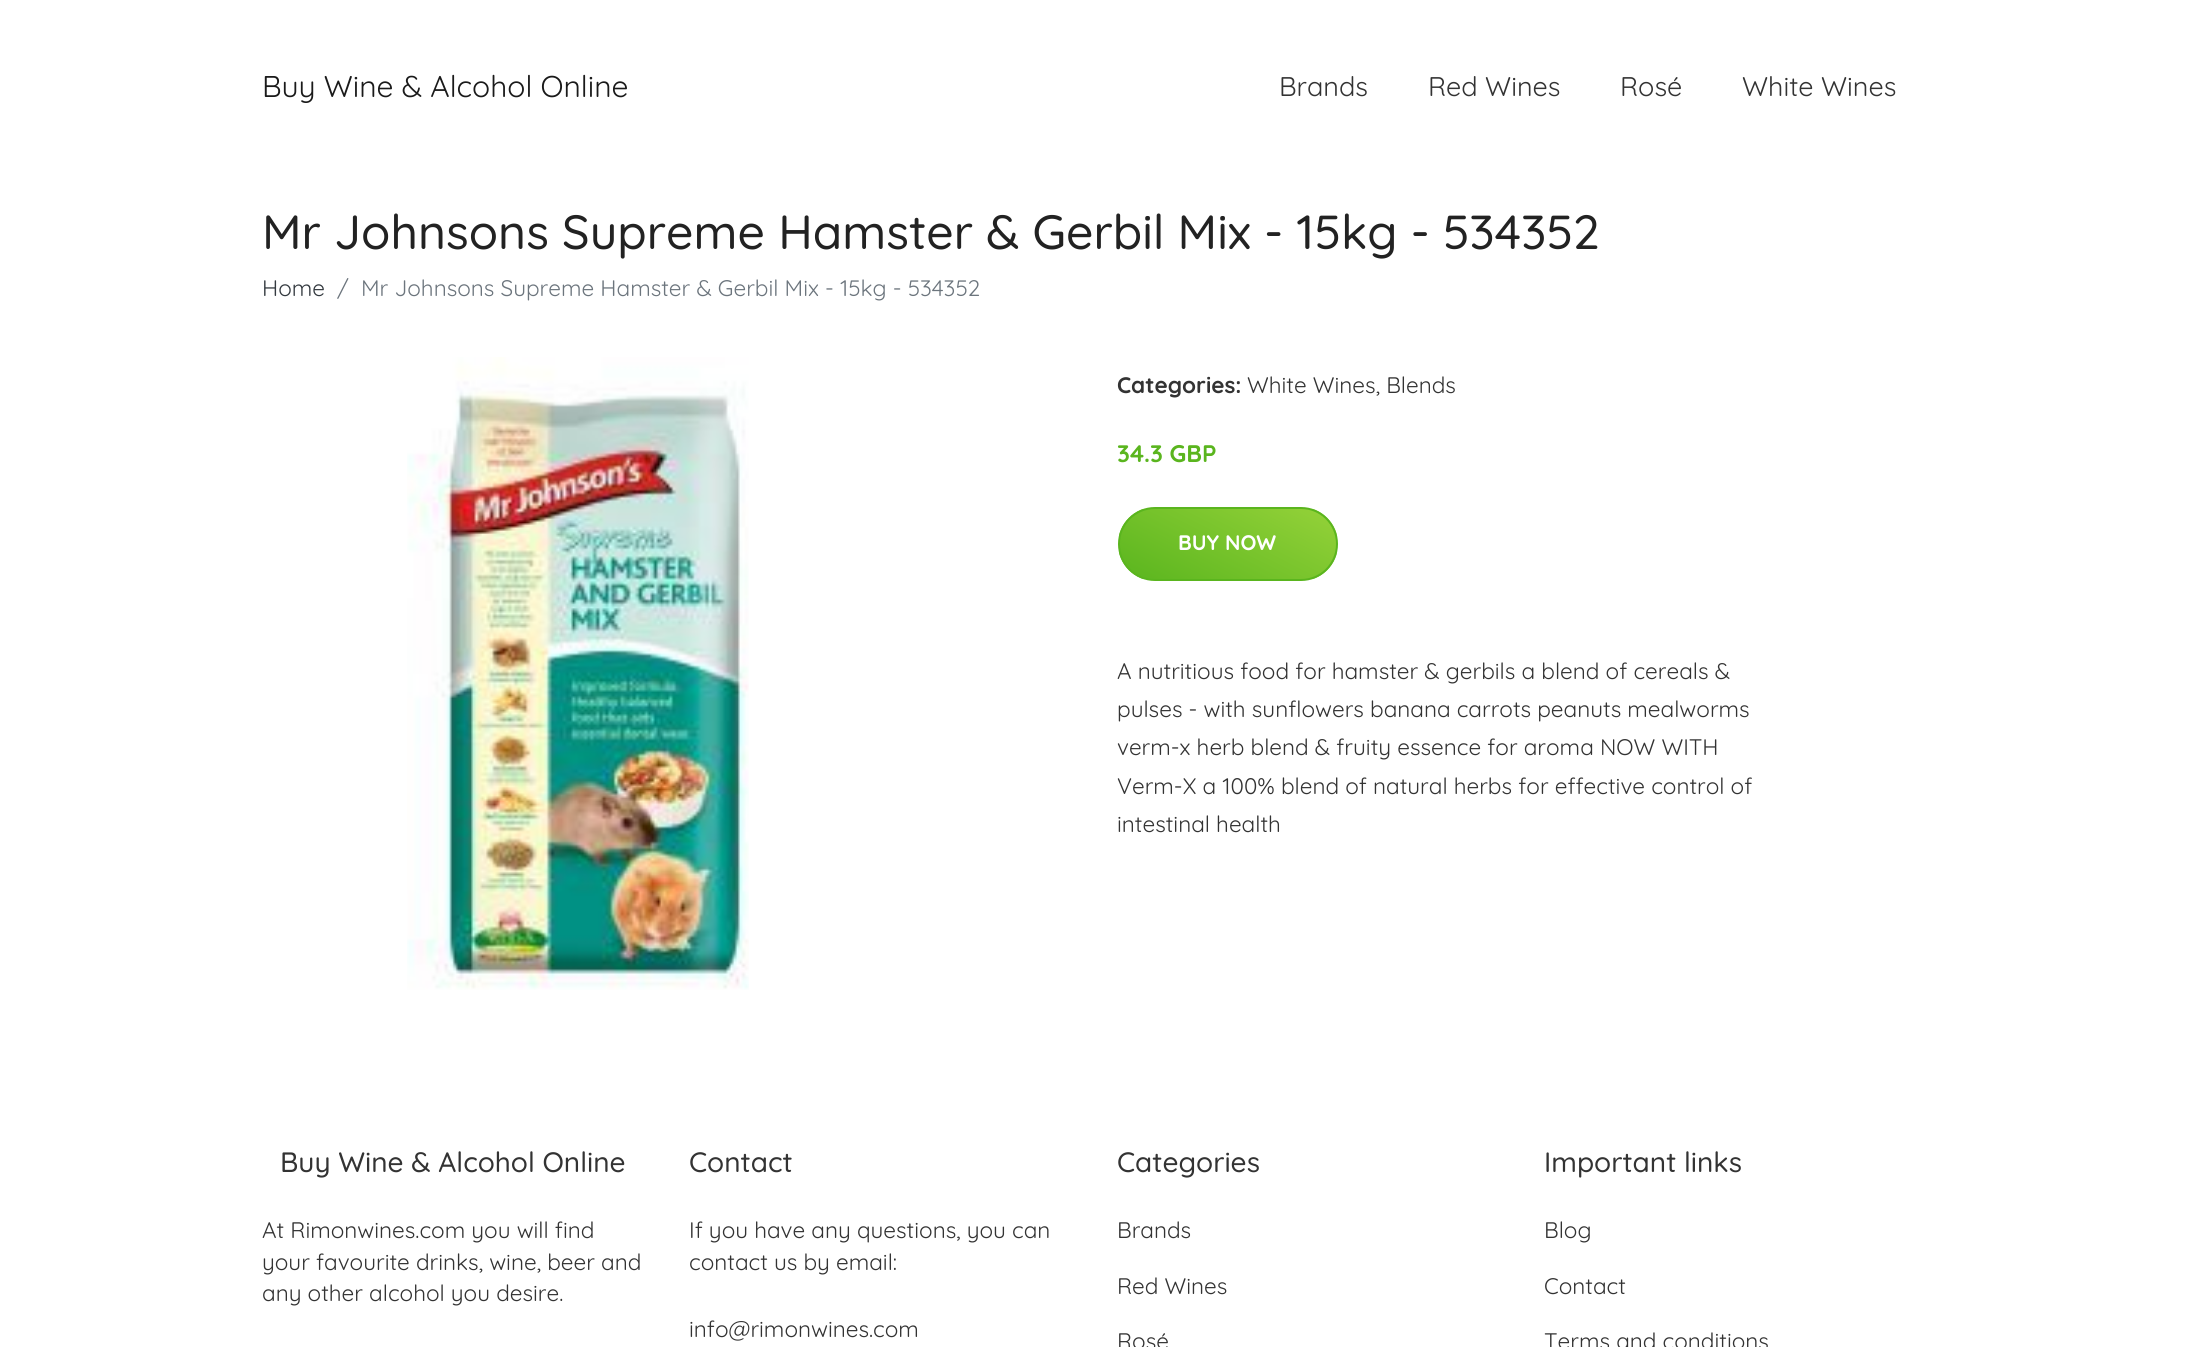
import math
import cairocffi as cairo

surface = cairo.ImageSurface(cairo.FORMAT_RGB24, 2188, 1347)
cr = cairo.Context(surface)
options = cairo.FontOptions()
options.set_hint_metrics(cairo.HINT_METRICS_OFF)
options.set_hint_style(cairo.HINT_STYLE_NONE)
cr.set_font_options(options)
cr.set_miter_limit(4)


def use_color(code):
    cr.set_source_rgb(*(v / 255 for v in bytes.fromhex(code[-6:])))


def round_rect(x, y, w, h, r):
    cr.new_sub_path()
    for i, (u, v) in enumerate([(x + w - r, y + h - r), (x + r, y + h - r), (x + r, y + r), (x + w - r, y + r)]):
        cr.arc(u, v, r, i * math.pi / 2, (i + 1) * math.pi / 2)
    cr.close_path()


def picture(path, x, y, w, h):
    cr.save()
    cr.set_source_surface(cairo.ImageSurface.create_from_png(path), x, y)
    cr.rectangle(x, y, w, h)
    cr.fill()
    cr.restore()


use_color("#ffffff")
cr.paint()
cr.select_font_face("Quicksand")
cr.set_font_size(30)
use_color("#1a1a1a")
cr.move_to(262, 97)
cr.show_text("Buy Wine & Alcohol Online")
cr.set_font_size(27)
use_color("#333333")
cr.move_to(1279, 96)
cr.show_text("Brands")
cr.move_to(1428, 96)
cr.show_text("Red Wines")
cr.move_to(1620, 96)
cr.show_text("Rosé")
cr.move_to(1742, 96)
cr.show_text("White Wines")
cr.select_font_face("Quicksand Medium")
cr.set_font_size(48)
use_color("#222222")
cr.move_to(262, 249)
cr.show_text("Mr Johnsons Supreme Hamster & Gerbil Mix - 15kg - 534352")
cr.select_font_face("Quicksand")
cr.set_font_size(22.5)
use_color("#343a40")
cr.move_to(262, 296)
cr.show_text("Home")
use_color("#6c757d")
cr.move_to(337, 296)
cr.show_text("/")
cr.move_to(361, 296)
cr.show_text("Mr Johnsons Supreme Hamster & Gerbil Mix - 15kg - 534352")
picture("img1.png", 407, 357, 342, 633)
cr.select_font_face("Quicksand", cairo.FONT_SLANT_NORMAL, cairo.FONT_WEIGHT_BOLD)
use_color("#333333")
cr.move_to(1117, 393)
cr.show_text("Categories:")
cr.select_font_face("Quicksand")
cr.move_to(1247, 393)
cr.show_text("White Wines, Blends")
cr.select_font_face("Quicksand", cairo.FONT_SLANT_NORMAL, cairo.FONT_WEIGHT_BOLD)
cr.set_font_size(24)
use_color("#5ab51e")
cr.move_to(1117, 462)
cr.show_text("34.3 GBP")
cr.save()
round_rect(1118, 507, 220, 74, 37)
cr.clip()
gradient = cairo.LinearGradient(1191, 616, 1264, 472)
gradient.add_color_stop_rgba(0, 0.353, 0.71, 0.118, 1)
gradient.add_color_stop_rgba(1, 0.584, 0.824, 0.224, 1)
cr.set_source(gradient)
cr.rectangle(1119, 509, 218, 70)
cr.fill()
cr.restore()
round_rect(1119, 508, 218, 72, 36)
cr.stroke()
cr.set_font_size(21)
use_color("#ffffff")
cr.move_to(1178, 550)
cr.show_text("BUY NOW")
cr.select_font_face("Quicksand")
cr.set_font_size(22.5)
use_color("#333333")
cr.move_to(1117, 679)
cr.show_text("A nutritious food for hamster & gerbils a blend of cereals &")
cr.move_to(1117, 717)
cr.show_text("pulses - with sunflowers banana carrots peanuts mealworms")
cr.move_to(1117, 755)
cr.show_text("verm-x herb blend & fruity essence for aroma NOW WITH")
cr.move_to(1117, 794)
cr.show_text("Verm-X a 100% blend of natural herbs for effective control of")
cr.move_to(1117, 832)
cr.show_text("intestinal health")
cr.select_font_face("Quicksand Medium")
cr.set_font_size(28)
cr.move_to(280, 1172)
cr.show_text("Buy Wine & Alcohol Online")
cr.select_font_face("Quicksand")
cr.set_font_size(22.5)
cr.move_to(262, 1238)
cr.show_text("At Rimonwines.com you will find")
cr.move_to(262, 1270)
cr.show_text("your favourite drinks, wine, beer and")
cr.move_to(262, 1301)
cr.show_text("any other alcohol you desire.")
cr.select_font_face("Quicksand Medium")
cr.set_font_size(28)
cr.move_to(689, 1172)
cr.show_text("Contact")
cr.select_font_face("Quicksand")
cr.set_font_size(22.5)
cr.move_to(689, 1238)
cr.show_text("If you have any questions, you can")
cr.move_to(689, 1270)
cr.show_text("contact us by email:")
cr.move_to(689, 1337)
cr.show_text("info@rimonwines.com")
cr.select_font_face("Quicksand Medium")
cr.set_font_size(28)
cr.move_to(1117, 1172)
cr.show_text("Categories")
cr.select_font_face("Quicksand")
cr.set_font_size(22.5)
cr.move_to(1117, 1238)
cr.show_text("Brands")
cr.move_to(1117, 1294)
cr.show_text("Red Wines")
cr.move_to(1117, 1349)
cr.show_text("Rosé")
cr.select_font_face("Quicksand Medium")
cr.set_font_size(28)
cr.move_to(1544, 1172)
cr.show_text("Important links")
cr.select_font_face("Quicksand")
cr.set_font_size(22.5)
cr.move_to(1544, 1238)
cr.show_text("Blog")
cr.move_to(1544, 1294)
cr.show_text("Contact")
cr.move_to(1544, 1349)
cr.show_text("Terms and conditions")
surface.write_to_png("result.png")
